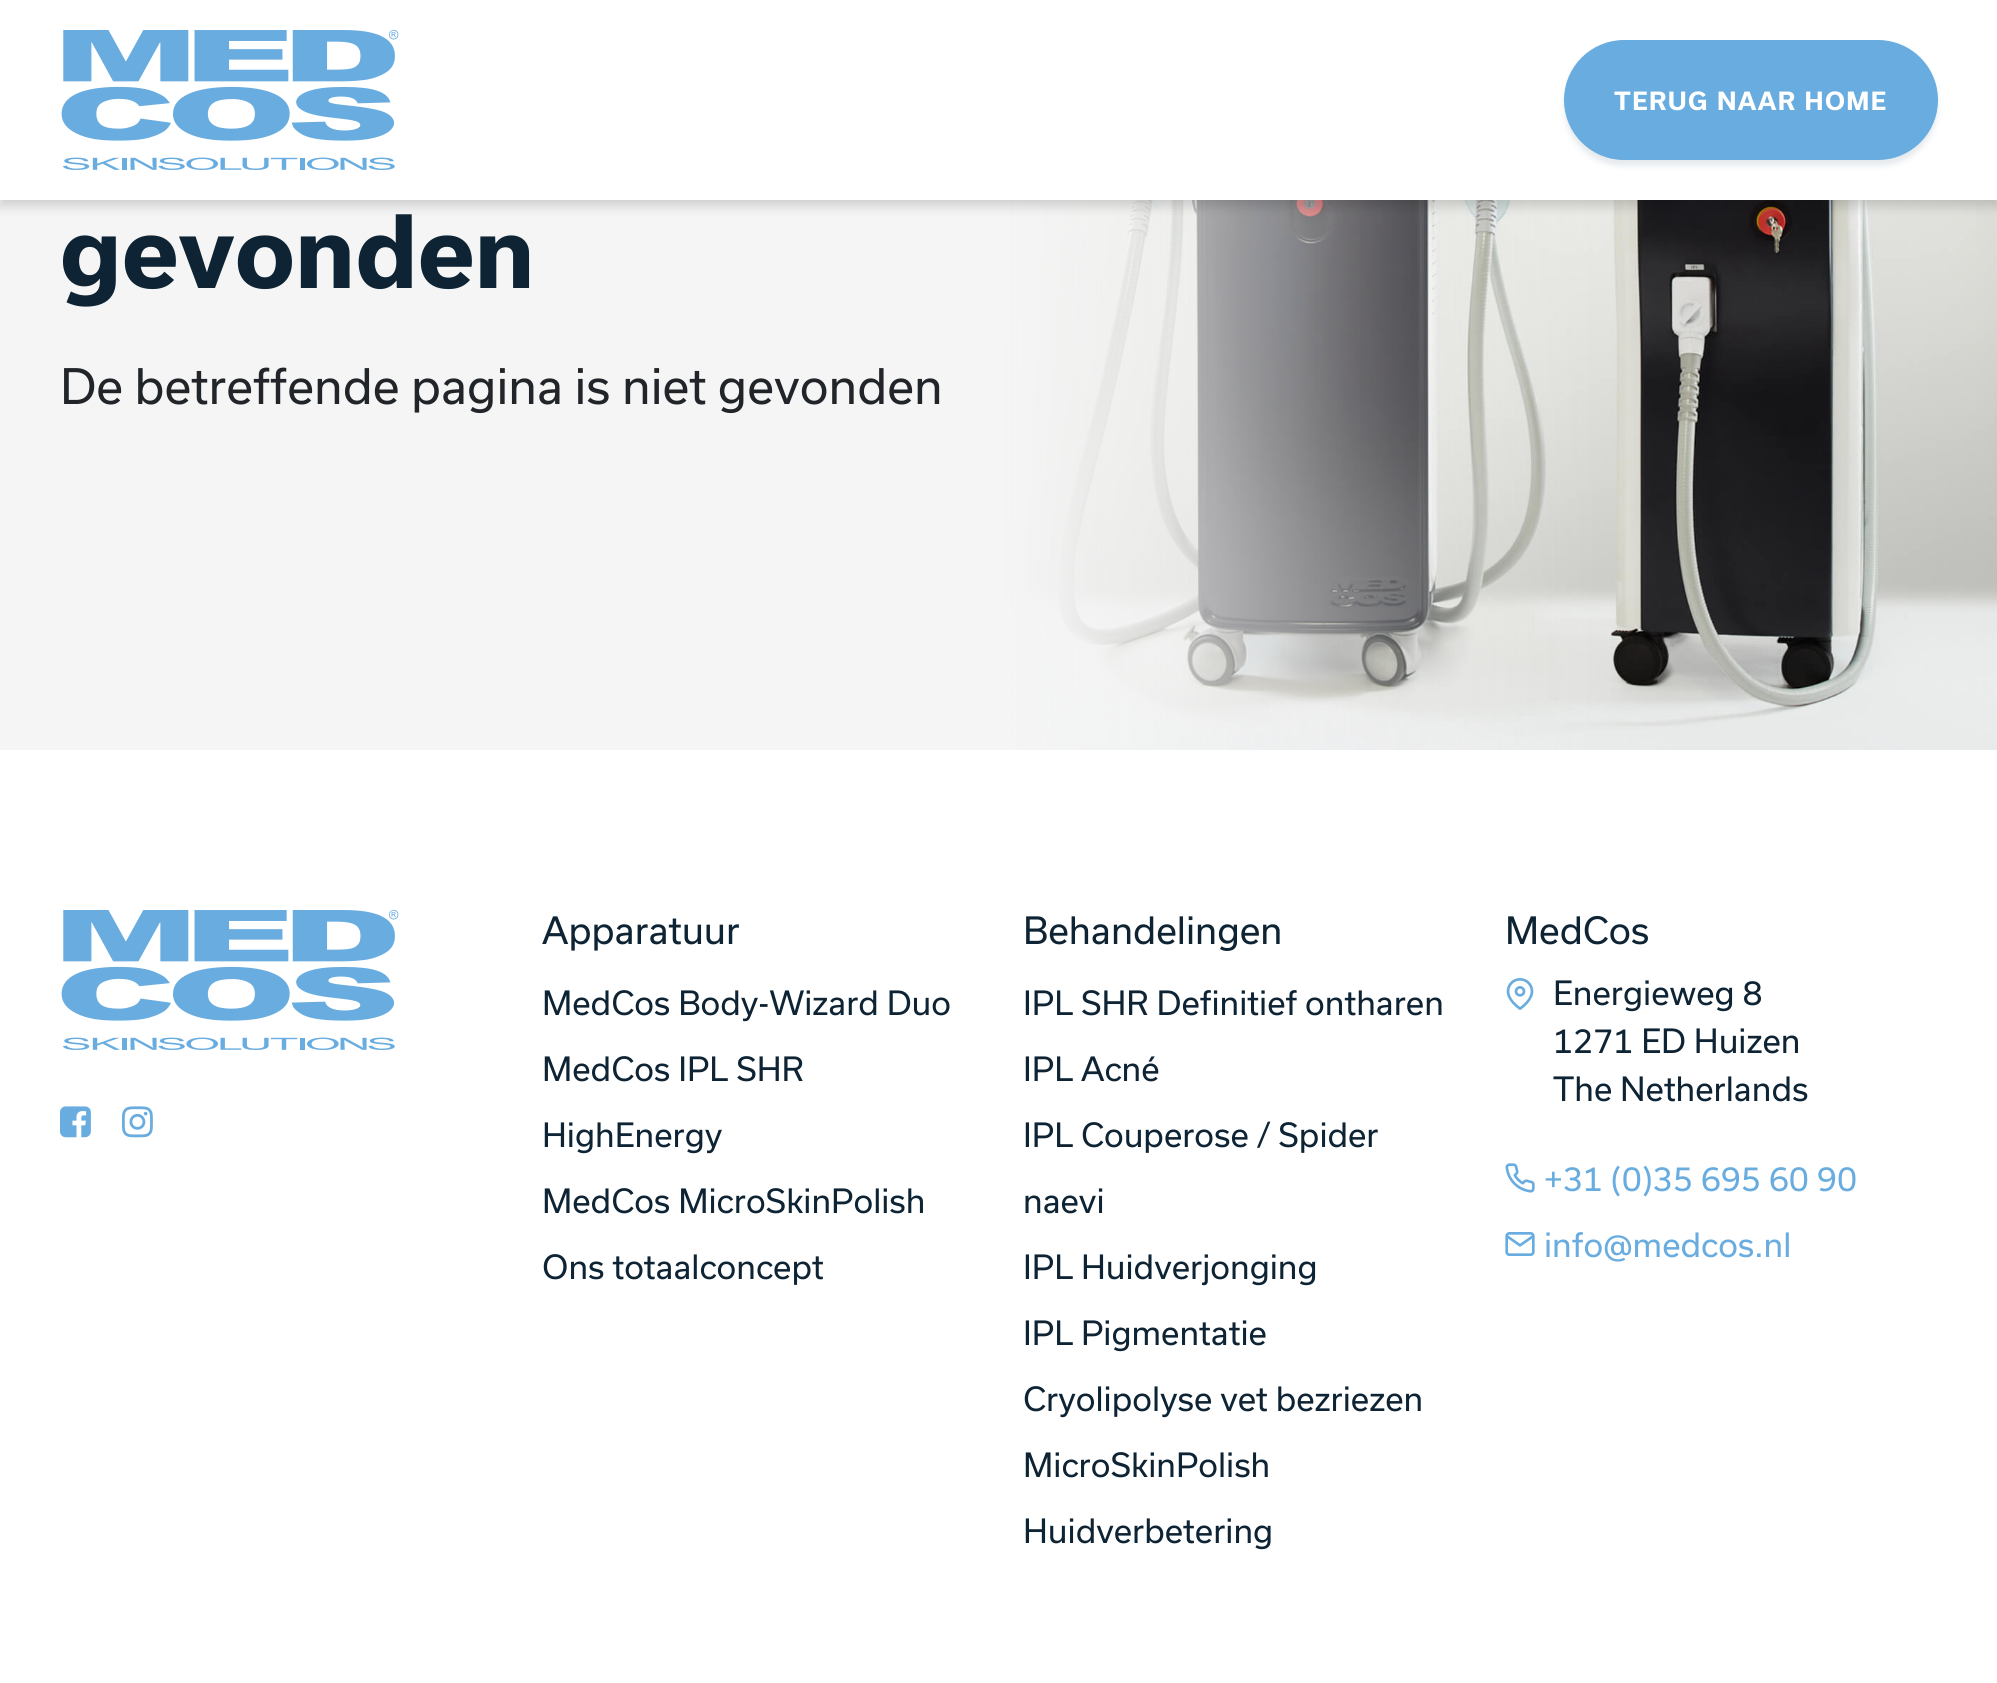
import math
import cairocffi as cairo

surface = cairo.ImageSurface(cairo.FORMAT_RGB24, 1997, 1683)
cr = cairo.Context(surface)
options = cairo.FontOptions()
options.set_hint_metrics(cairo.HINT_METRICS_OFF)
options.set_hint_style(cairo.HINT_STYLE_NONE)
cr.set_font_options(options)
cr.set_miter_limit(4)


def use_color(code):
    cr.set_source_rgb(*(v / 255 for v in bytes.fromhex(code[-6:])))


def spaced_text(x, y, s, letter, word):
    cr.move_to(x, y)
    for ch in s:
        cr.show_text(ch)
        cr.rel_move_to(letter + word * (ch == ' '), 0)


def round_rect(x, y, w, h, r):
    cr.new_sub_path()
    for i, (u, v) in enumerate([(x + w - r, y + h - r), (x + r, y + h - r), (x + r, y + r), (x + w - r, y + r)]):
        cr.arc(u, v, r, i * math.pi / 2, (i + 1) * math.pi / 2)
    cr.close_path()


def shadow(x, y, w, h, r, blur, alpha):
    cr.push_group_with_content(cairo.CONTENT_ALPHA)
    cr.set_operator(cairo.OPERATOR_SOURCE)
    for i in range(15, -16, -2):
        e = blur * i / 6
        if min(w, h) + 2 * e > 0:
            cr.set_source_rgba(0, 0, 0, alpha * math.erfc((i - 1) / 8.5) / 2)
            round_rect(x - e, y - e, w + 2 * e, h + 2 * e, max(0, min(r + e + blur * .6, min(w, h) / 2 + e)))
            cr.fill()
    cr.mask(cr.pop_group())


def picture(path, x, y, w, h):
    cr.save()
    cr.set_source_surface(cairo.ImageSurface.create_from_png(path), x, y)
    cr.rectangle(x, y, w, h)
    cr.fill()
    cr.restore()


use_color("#ffffff")
cr.paint()
use_color("#f5f5f5")
cr.rectangle(0, 200, 1000, 550)
cr.fill()
picture("img2.png", 1000, 200, 997, 550)
use_color("#000000")
shadow(0, 6, 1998, 200, 0, 6, 0.16)
use_color("#ffffff")
cr.rectangle(0, 0, 1997, 200)
cr.fill()
picture("img1.png", 61, 30, 338, 140)
use_color("#022d4d")
shadow(1564, 46, 374, 120, 60, 3, 0.1)
use_color("#69acdf")
round_rect(1564, 40, 374, 120, 60)
cr.fill()
cr.select_font_face("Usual", cairo.FONT_SLANT_NORMAL, cairo.FONT_WEIGHT_BOLD)
cr.set_font_size(24)
use_color("#ffffff")
spaced_text(1614, 110, "TERUG NAAR HOME", 1.4, 0)
cr.set_font_size(96)
use_color("#0e2434")
cr.move_to(60, 288)
cr.show_text("gevonden")
cr.select_font_face("Usual")
cr.set_font_size(46.75)
use_color("#212529")
cr.move_to(60, 404)
cr.show_text("De betreffende pagina is niet gevonden")
picture("img1.png", 61, 910, 338, 140)
picture("img3.png", 60, 1106, 31, 32)
picture("img4.png", 122, 1106, 31, 32)
cr.set_font_size(36)
use_color("#0e2434")
cr.move_to(542, 944)
cr.show_text("Apparatuur")
cr.set_font_size(32)
cr.move_to(542, 1015)
cr.show_text("MedCos Body-Wizard Duo")
cr.move_to(542, 1081)
cr.show_text("MedCos IPL SHR")
cr.move_to(542, 1147)
cr.show_text("HighEnergy")
cr.move_to(542, 1213)
cr.show_text("MedCos MicroSkinPolish")
cr.move_to(542, 1279)
cr.show_text("Ons totaalconcept")
cr.set_font_size(36)
cr.move_to(1023, 944)
cr.show_text("Behandelingen")
cr.set_font_size(32)
cr.move_to(1023, 1015)
cr.show_text("IPL SHR Definitief ontharen")
cr.move_to(1023, 1081)
cr.show_text("IPL Acné")
cr.move_to(1023, 1147)
cr.show_text("IPL Couperose / Spider")
cr.move_to(1023, 1213)
cr.show_text("naevi")
cr.move_to(1023, 1279)
cr.show_text("IPL Huidverjonging")
cr.move_to(1023, 1345)
cr.show_text("IPL Pigmentatie")
cr.move_to(1023, 1411)
cr.show_text("Cryolipolyse vet bezriezen")
cr.move_to(1023, 1477)
cr.show_text("MicroSkinPolish")
cr.move_to(1023, 1543)
cr.show_text("Huidverbetering")
cr.set_font_size(36)
cr.move_to(1505, 944)
cr.show_text("MedCos")
picture("img5.png", 1506, 978, 28, 32)
cr.set_font_size(32)
cr.move_to(1553, 1005)
cr.show_text("Energieweg 8")
cr.move_to(1553, 1053)
cr.show_text("1271 ED Huizen")
cr.move_to(1553, 1101)
cr.show_text("The Netherlands")
picture("img6.png", 1505, 1163, 30, 30)
use_color("#69acdf")
cr.move_to(1544, 1191)
cr.show_text("+31 (0)35 695 60 90")
picture("img7.png", 1505, 1232, 30, 24)
cr.move_to(1544, 1257)
cr.show_text("info@medcos.nl")
surface.write_to_png("result.png")
